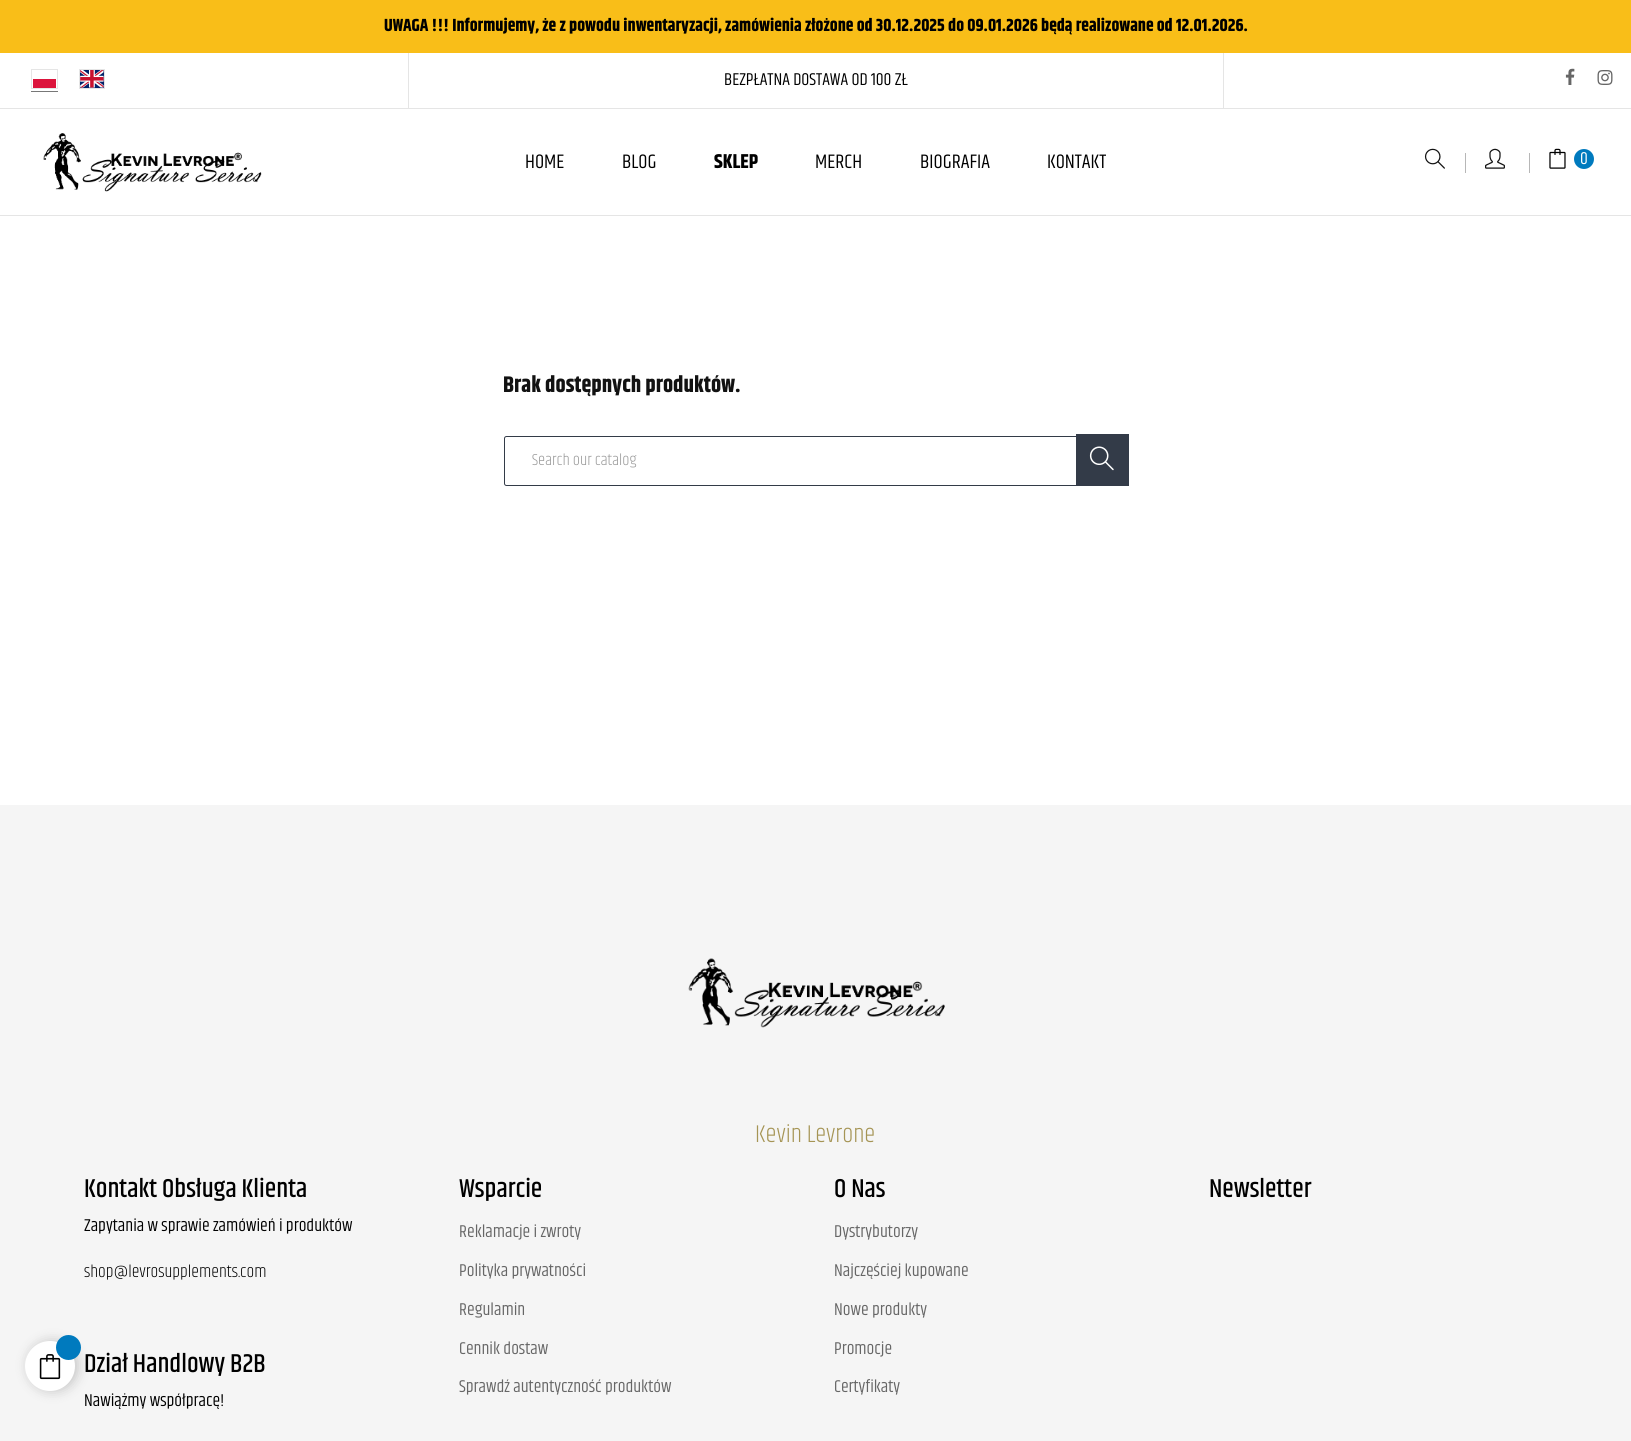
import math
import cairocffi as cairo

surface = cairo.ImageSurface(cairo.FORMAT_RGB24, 1631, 1441)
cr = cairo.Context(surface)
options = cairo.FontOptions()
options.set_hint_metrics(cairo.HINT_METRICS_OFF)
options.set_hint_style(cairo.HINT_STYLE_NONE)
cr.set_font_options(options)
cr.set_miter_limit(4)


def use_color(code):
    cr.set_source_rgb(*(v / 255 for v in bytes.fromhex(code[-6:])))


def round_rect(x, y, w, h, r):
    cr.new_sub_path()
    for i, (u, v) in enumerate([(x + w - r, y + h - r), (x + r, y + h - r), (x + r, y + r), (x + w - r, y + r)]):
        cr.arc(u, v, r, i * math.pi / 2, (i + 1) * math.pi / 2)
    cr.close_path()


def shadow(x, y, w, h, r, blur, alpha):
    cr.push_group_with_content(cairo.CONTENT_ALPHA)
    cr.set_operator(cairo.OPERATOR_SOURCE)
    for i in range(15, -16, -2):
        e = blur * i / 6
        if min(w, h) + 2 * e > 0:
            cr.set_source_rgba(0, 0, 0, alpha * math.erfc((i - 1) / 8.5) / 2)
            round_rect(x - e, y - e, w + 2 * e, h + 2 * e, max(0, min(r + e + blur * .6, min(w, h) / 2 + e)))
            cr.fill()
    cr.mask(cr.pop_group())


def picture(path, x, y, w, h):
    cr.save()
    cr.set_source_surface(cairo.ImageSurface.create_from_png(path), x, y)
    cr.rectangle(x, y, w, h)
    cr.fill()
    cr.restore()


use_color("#ffffff")
cr.paint()
use_color("#f5f5f5")
cr.rectangle(0, 805, 1631, 636)
cr.fill()
use_color("#000000")
shadow(28, 1341, 50, 50, 25, 6, 0.2)
use_color("#ffffff")
cr.arc(50, 1366, 25, 0, 2 * math.pi)
cr.fill()
picture("img1.png", 39, 1354, 22, 26)
use_color("#007abe")
cr.arc(68.5, 1347.5, 12.5, 0, 2 * math.pi)
cr.fill()
use_color("#f9be18")
cr.rectangle(0, 0, 1631, 53)
cr.fill()
cr.select_font_face("Khand", cairo.FONT_SLANT_NORMAL, cairo.FONT_WEIGHT_BOLD)
cr.set_font_size(17.5)
use_color("#000000")
cr.move_to(384, 31)
cr.show_text("UWAGA !!! Informujemy, że z powodu inwentaryzacji, zamówienia złożone od 30.12.2025 do 09.01.2026 będą realizowane od 12.01.2026.")
use_color("#e5e5e5")
cr.rectangle(0, 108, 1631, 1)
cr.fill()
cr.rectangle(31.5, 69.5, 26, 19)
cr.set_line_width(1)
cr.stroke()
use_color("#dc143c")
cr.rectangle(33, 79, 23, 9)
cr.fill()
use_color("#777777")
cr.rectangle(31, 91, 27, 1)
cr.fill()
cr.rectangle(79.5, 69.5, 25, 19)
use_color("#e5e5e5")
cr.stroke()
picture("img2.png", 80, 70, 24, 18)
cr.rectangle(1223, 53, 1, 55)
cr.fill()
cr.rectangle(408, 53, 1, 55)
cr.fill()
cr.select_font_face("Khand")
use_color("#000000")
cr.move_to(724, 85)
cr.show_text("BEZPŁATNA DOSTAWA OD 100 ZŁ")
picture("img3.png", 1565, 68, 10, 17)
picture("img4.png", 1597, 70, 16, 15)
use_color("#e5e5e5")
cr.rectangle(0, 215, 1631, 1)
cr.fill()
picture("img5.png", 43, 133, 219, 59)
cr.set_font_size(20)
use_color("#000000")
cr.move_to(525, 168)
cr.show_text("HOME")
cr.move_to(622, 168)
cr.show_text("BLOG")
cr.select_font_face("Khand", cairo.FONT_SLANT_NORMAL, cairo.FONT_WEIGHT_BOLD)
cr.move_to(714, 168)
cr.show_text("SKLEP")
cr.select_font_face("Khand")
cr.move_to(815, 168)
cr.show_text("MERCH")
cr.move_to(920, 168)
cr.show_text("BIOGRAFIA")
cr.move_to(1047, 168)
cr.show_text("KONTAKT")
picture("img6.png", 1424, 148, 21, 21)
use_color("#b7b7b7")
cr.rectangle(1465, 153, 1, 20)
cr.fill()
picture("img7.png", 1485, 148, 20, 21)
cr.rectangle(1529, 153, 1, 20)
cr.fill()
picture("img8.png", 1549, 148, 17, 21)
use_color("#007abe")
cr.arc(1584, 159, 10, 0, 2 * math.pi)
cr.fill()
cr.set_font_size(17.5)
use_color("#ffffff")
cr.move_to(1580, 164)
cr.show_text("0")
cr.select_font_face("Khand", cairo.FONT_SLANT_NORMAL, cairo.FONT_WEIGHT_BOLD)
cr.set_font_size(22.5)
use_color("#121212")
cr.move_to(503, 392)
cr.show_text("Brak dostępnych produktów.")
round_rect(504.5, 436.5, 624, 49, 2)
use_color("#333b48")
cr.stroke()
cr.select_font_face("Khand Light")
cr.set_font_size(16.25)
use_color("#989898")
cr.move_to(532, 465)
cr.show_text("Search our catalog")
use_color("#333b48")
cr.rectangle(1076, 434, 53, 52)
cr.fill()
picture("img9.png", 1089, 446, 25, 25)
picture("img10.png", 688, 958, 257, 70)
cr.set_font_size(25)
use_color("#a59454")
cr.move_to(755, 1142)
cr.show_text("Kevin Levrone")
cr.select_font_face("Khand Medium")
cr.set_font_size(26.25)
use_color("#000000")
cr.move_to(84, 1197)
cr.show_text("Kontakt Obsługa Klienta")
cr.select_font_face("Khand")
cr.set_font_size(17.5)
cr.move_to(84, 1231)
cr.show_text("Zapytania w sprawie zamówień i produktów")
cr.select_font_face("Khand Light")
cr.move_to(84, 1277)
cr.show_text("shop@levrosupplements.com")
cr.select_font_face("Khand Medium")
cr.set_font_size(26.25)
cr.move_to(84, 1372)
cr.show_text("Dział Handlowy B2B")
cr.select_font_face("Khand")
cr.set_font_size(17.5)
cr.move_to(84, 1406)
cr.show_text("Nawiążmy współpracę!")
cr.select_font_face("Khand Medium")
cr.set_font_size(26.25)
cr.move_to(459, 1197)
cr.show_text("Wsparcie")
cr.select_font_face("Khand")
cr.set_font_size(17.5)
use_color("#666666")
cr.move_to(459, 1237)
cr.show_text("Reklamacje i zwroty")
cr.move_to(459, 1276)
cr.show_text("Polityka prywatności")
cr.move_to(459, 1315)
cr.show_text("Regulamin")
cr.move_to(459, 1354)
cr.show_text("Cennik dostaw")
cr.move_to(459, 1392)
cr.show_text("Sprawdź autentyczność produktów")
cr.select_font_face("Khand Medium")
cr.set_font_size(26.25)
use_color("#000000")
cr.move_to(834, 1197)
cr.show_text("O Nas")
cr.select_font_face("Khand")
cr.set_font_size(17.5)
use_color("#666666")
cr.move_to(834, 1237)
cr.show_text("Dystrybutorzy")
cr.move_to(834, 1276)
cr.show_text("Najczęściej kupowane")
cr.move_to(834, 1315)
cr.show_text("Nowe produkty")
cr.move_to(834, 1354)
cr.show_text("Promocje")
cr.move_to(834, 1392)
cr.show_text("Certyfikaty")
cr.select_font_face("Khand Medium")
cr.set_font_size(26.25)
use_color("#000000")
cr.move_to(1209, 1197)
cr.show_text("Newsletter")
surface.write_to_png("result.png")
